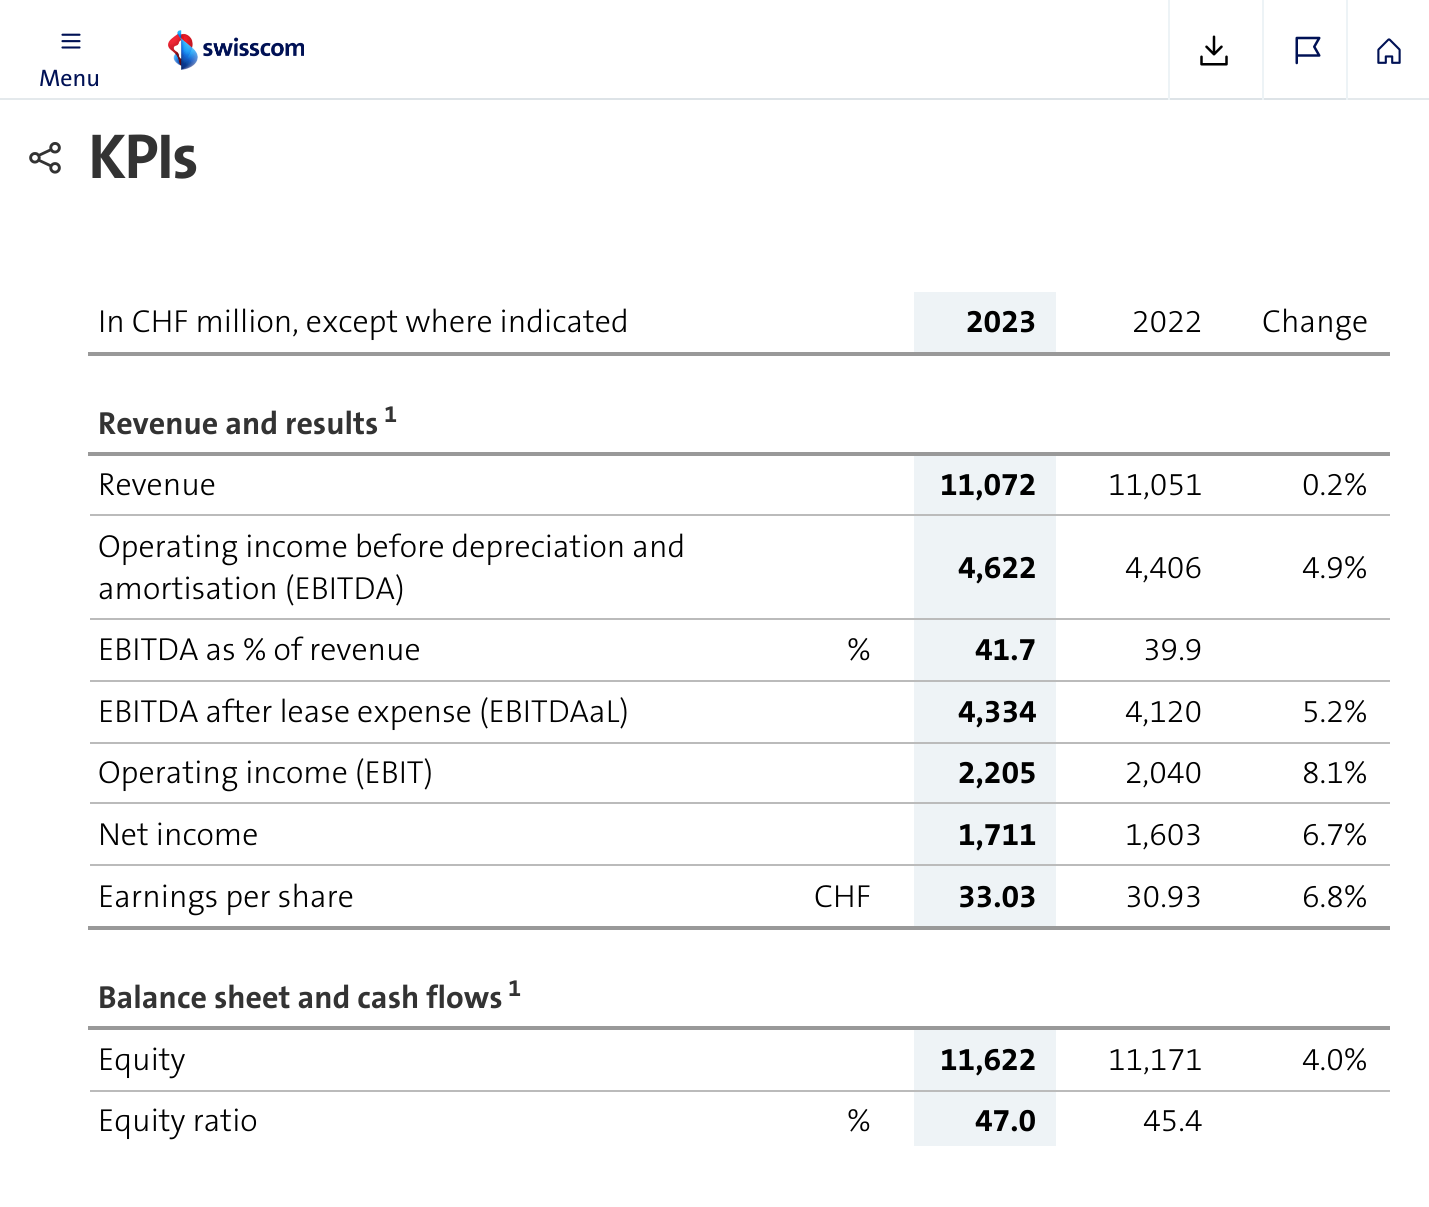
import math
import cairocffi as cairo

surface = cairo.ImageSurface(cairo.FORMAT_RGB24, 1429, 1207)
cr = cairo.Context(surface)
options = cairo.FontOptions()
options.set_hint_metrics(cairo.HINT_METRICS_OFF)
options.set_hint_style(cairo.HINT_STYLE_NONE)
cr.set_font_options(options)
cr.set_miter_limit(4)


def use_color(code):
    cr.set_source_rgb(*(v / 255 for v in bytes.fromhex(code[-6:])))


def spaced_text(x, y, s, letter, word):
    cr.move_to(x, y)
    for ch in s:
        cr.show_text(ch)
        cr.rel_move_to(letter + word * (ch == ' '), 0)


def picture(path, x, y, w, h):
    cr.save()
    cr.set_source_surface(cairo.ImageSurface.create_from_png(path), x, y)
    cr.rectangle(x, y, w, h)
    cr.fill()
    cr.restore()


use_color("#ffffff")
cr.paint()
use_color("#dde3e7")
cr.rectangle(140, 98, 1206, 2)
cr.fill()
picture("img1.png", 168, 30, 136, 40)
use_color("#e4e9ec")
cr.rectangle(0, 98, 140, 2)
cr.fill()
picture("img2.png", 61, 33, 20, 16)
cr.select_font_face("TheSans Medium")
cr.set_font_size(24)
use_color("#001155")
cr.move_to(39, 86)
cr.show_text("Menu")
use_color("#edf3f6")
cr.rectangle(1168, 0, 2, 100)
cr.fill()
picture("img3.png", 1200, 35, 28, 31)
cr.rectangle(1262, 0, 2, 100)
cr.fill()
picture("img4.png", 1295, 36, 26, 29)
use_color("#e4e9ec")
cr.rectangle(1348, 98, 81, 2)
cr.fill()
use_color("#edf3f6")
cr.rectangle(1346, 0, 2, 100)
cr.fill()
picture("img5.png", 1377, 38, 24, 26)
picture("img6.png", 29, 142, 32, 32)
cr.select_font_face("TheSans", cairo.FONT_SLANT_NORMAL, cairo.FONT_WEIGHT_BOLD)
cr.set_font_size(64)
use_color("#333333")
spaced_text(88, 178, "KPIs", -2, 0)
use_color("#999999")
cr.rectangle(88, 352, 1302, 4)
cr.fill()
cr.select_font_face("TheSans Light")
cr.set_font_size(32)
use_color("#000000")
cr.move_to(98, 332)
cr.show_text("In CHF million, except where indicated")
use_color("#eef3f6")
cr.rectangle(914, 292, 142, 60)
cr.fill()
cr.select_font_face("TheSans", cairo.FONT_SLANT_NORMAL, cairo.FONT_WEIGHT_BOLD)
use_color("#000000")
cr.move_to(966, 332)
cr.show_text("2023")
cr.select_font_face("TheSans Light")
cr.move_to(1132, 332)
cr.show_text("2022")
cr.move_to(1262, 332)
cr.show_text("Change")
use_color("#999999")
cr.rectangle(88, 452, 1302, 4)
cr.fill()
cr.select_font_face("TheSans", cairo.FONT_SLANT_NORMAL, cairo.FONT_WEIGHT_BOLD)
use_color("#333333")
cr.move_to(98, 434)
cr.show_text("Revenue and results")
cr.set_font_size(24)
cr.move_to(384, 422)
cr.show_text("1")
use_color("#bbbbbb")
cr.rectangle(90, 514, 1300, 2)
cr.fill()
cr.select_font_face("TheSans Light")
cr.set_font_size(32)
use_color("#000000")
cr.move_to(98, 495)
cr.show_text("Revenue")
use_color("#eef3f6")
cr.rectangle(914, 456, 142, 58)
cr.fill()
cr.select_font_face("TheSans", cairo.FONT_SLANT_NORMAL, cairo.FONT_WEIGHT_BOLD)
use_color("#000000")
cr.move_to(940, 495)
cr.show_text("11,072")
cr.select_font_face("TheSans Light")
cr.move_to(1108, 495)
cr.show_text("11,051")
cr.move_to(1302, 495)
cr.show_text("0.2%")
use_color("#bbbbbb")
cr.rectangle(90, 618, 1300, 2)
cr.fill()
use_color("#000000")
cr.move_to(98, 557)
cr.show_text("Operating income before depreciation and")
cr.move_to(98, 599)
cr.show_text("amortisation (EBITDA)")
use_color("#eef3f6")
cr.rectangle(914, 516, 142, 102)
cr.fill()
cr.select_font_face("TheSans", cairo.FONT_SLANT_NORMAL, cairo.FONT_WEIGHT_BOLD)
use_color("#000000")
cr.move_to(958, 578)
cr.show_text("4,622")
cr.select_font_face("TheSans Light")
cr.move_to(1125, 578)
cr.show_text("4,406")
cr.move_to(1302, 578)
cr.show_text("4.9%")
use_color("#bbbbbb")
cr.rectangle(90, 680, 1300, 2)
cr.fill()
use_color("#000000")
cr.move_to(98, 660)
cr.show_text("EBITDA as % of revenue")
cr.move_to(847, 660)
cr.show_text("%")
use_color("#eef3f6")
cr.rectangle(914, 620, 142, 60)
cr.fill()
cr.select_font_face("TheSans", cairo.FONT_SLANT_NORMAL, cairo.FONT_WEIGHT_BOLD)
use_color("#000000")
cr.move_to(975, 660)
cr.show_text("41.7")
cr.select_font_face("TheSans Light")
cr.move_to(1143, 660)
cr.show_text("39.9")
use_color("#bbbbbb")
cr.rectangle(90, 742, 1300, 2)
cr.fill()
use_color("#000000")
cr.move_to(98, 722)
cr.show_text("EBITDA after lease expense (EBITDAaL)")
use_color("#eef3f6")
cr.rectangle(914, 682, 142, 60)
cr.fill()
cr.select_font_face("TheSans", cairo.FONT_SLANT_NORMAL, cairo.FONT_WEIGHT_BOLD)
use_color("#000000")
cr.move_to(958, 722)
cr.show_text("4,334")
cr.select_font_face("TheSans Light")
cr.move_to(1125, 722)
cr.show_text("4,120")
cr.move_to(1302, 722)
cr.show_text("5.2%")
use_color("#bbbbbb")
cr.rectangle(90, 802, 1300, 2)
cr.fill()
use_color("#000000")
cr.move_to(98, 783)
cr.show_text("Operating income (EBIT)")
use_color("#eef3f6")
cr.rectangle(914, 744, 142, 58)
cr.fill()
cr.select_font_face("TheSans", cairo.FONT_SLANT_NORMAL, cairo.FONT_WEIGHT_BOLD)
use_color("#000000")
cr.move_to(958, 783)
cr.show_text("2,205")
cr.select_font_face("TheSans Light")
cr.move_to(1125, 783)
cr.show_text("2,040")
cr.move_to(1302, 783)
cr.show_text("8.1%")
use_color("#bbbbbb")
cr.rectangle(90, 864, 1300, 2)
cr.fill()
use_color("#000000")
cr.move_to(98, 845)
cr.show_text("Net income")
use_color("#eef3f6")
cr.rectangle(914, 804, 142, 60)
cr.fill()
cr.select_font_face("TheSans", cairo.FONT_SLANT_NORMAL, cairo.FONT_WEIGHT_BOLD)
use_color("#000000")
cr.move_to(958, 845)
cr.show_text("1,711")
cr.select_font_face("TheSans Light")
cr.move_to(1125, 845)
cr.show_text("1,603")
cr.move_to(1302, 845)
cr.show_text("6.7%")
use_color("#999999")
cr.rectangle(88, 926, 1302, 4)
cr.fill()
use_color("#000000")
cr.move_to(98, 907)
cr.show_text("Earnings per share")
cr.move_to(814, 907)
cr.show_text("CHF")
use_color("#eef3f6")
cr.rectangle(914, 866, 142, 60)
cr.fill()
cr.select_font_face("TheSans", cairo.FONT_SLANT_NORMAL, cairo.FONT_WEIGHT_BOLD)
use_color("#000000")
cr.move_to(958, 907)
cr.show_text("33.03")
cr.select_font_face("TheSans Light")
cr.move_to(1125, 907)
cr.show_text("30.93")
cr.move_to(1302, 907)
cr.show_text("6.8%")
use_color("#999999")
cr.rectangle(88, 1026, 1302, 4)
cr.fill()
cr.select_font_face("TheSans", cairo.FONT_SLANT_NORMAL, cairo.FONT_WEIGHT_BOLD)
use_color("#333333")
cr.move_to(98, 1008)
cr.show_text("Balance sheet and cash flows")
cr.set_font_size(24)
cr.move_to(508, 996)
cr.show_text("1")
use_color("#bbbbbb")
cr.rectangle(90, 1090, 1300, 2)
cr.fill()
cr.select_font_face("TheSans Light")
cr.set_font_size(32)
use_color("#000000")
cr.move_to(98, 1070)
cr.show_text("Equity")
use_color("#eef3f6")
cr.rectangle(914, 1030, 142, 60)
cr.fill()
cr.select_font_face("TheSans", cairo.FONT_SLANT_NORMAL, cairo.FONT_WEIGHT_BOLD)
use_color("#000000")
cr.move_to(940, 1070)
cr.show_text("11,622")
cr.select_font_face("TheSans Light")
cr.move_to(1108, 1070)
cr.show_text("11,171")
cr.move_to(1302, 1070)
cr.show_text("4.0%")
cr.move_to(98, 1131)
cr.show_text("Equity ratio")
cr.move_to(847, 1131)
cr.show_text("%")
use_color("#eef3f6")
cr.rectangle(914, 1092, 142, 54)
cr.fill()
cr.select_font_face("TheSans", cairo.FONT_SLANT_NORMAL, cairo.FONT_WEIGHT_BOLD)
use_color("#000000")
cr.move_to(975, 1131)
cr.show_text("47.0")
cr.select_font_face("TheSans Light")
cr.move_to(1143, 1131)
cr.show_text("45.4")
surface.write_to_png("result.png")
